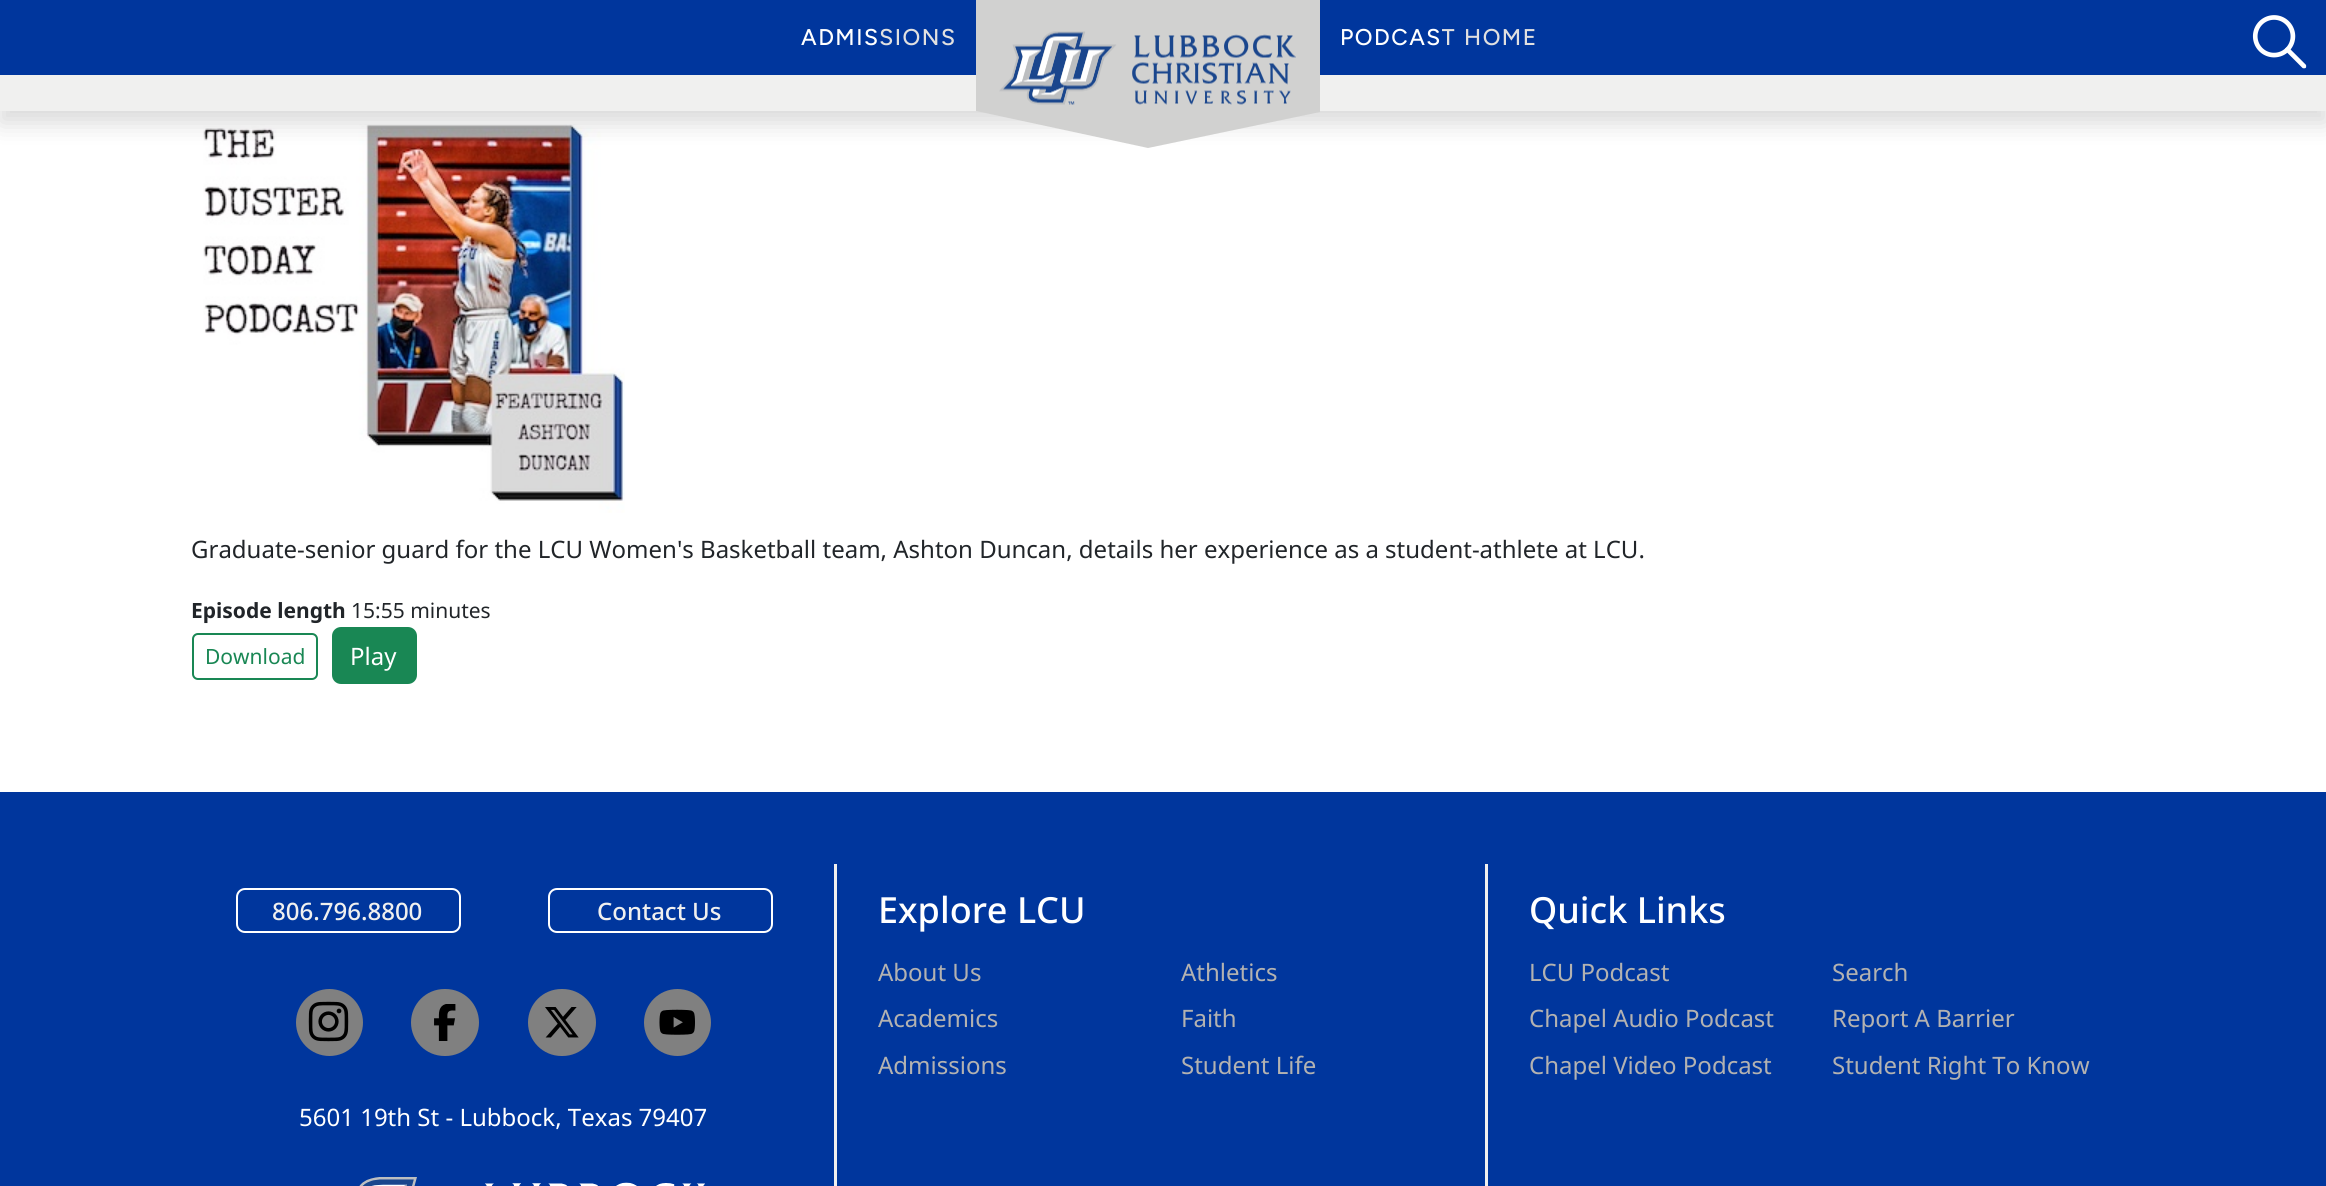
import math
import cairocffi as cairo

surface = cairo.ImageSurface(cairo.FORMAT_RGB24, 2326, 1186)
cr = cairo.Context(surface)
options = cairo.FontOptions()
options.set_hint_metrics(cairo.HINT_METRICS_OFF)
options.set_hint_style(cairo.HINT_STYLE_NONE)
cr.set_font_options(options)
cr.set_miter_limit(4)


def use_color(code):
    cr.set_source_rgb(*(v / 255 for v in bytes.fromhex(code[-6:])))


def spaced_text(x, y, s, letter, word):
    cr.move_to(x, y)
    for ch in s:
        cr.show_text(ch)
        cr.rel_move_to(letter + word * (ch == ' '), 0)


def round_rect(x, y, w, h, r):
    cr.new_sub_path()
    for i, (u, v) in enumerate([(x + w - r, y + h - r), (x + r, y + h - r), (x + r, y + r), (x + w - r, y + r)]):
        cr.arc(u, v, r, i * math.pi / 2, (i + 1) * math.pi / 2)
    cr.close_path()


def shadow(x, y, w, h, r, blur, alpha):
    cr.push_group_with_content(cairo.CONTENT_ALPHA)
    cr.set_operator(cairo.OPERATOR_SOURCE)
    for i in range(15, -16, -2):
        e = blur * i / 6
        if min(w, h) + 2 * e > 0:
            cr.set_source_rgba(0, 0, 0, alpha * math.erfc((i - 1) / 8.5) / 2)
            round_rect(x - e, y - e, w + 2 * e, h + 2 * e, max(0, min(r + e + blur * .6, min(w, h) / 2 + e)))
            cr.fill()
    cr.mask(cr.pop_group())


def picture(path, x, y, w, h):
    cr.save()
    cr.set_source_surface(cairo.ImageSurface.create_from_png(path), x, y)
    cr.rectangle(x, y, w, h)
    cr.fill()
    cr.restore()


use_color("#ffffff")
cr.paint()
picture("img3.png", 203, 124, 422, 389)
use_color("#000000")
shadow(0, 87, 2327, 36, 0, 12, 0.15)
use_color("#00369d")
cr.rectangle(0, 0, 2326, 75)
cr.fill()
cr.select_font_face("Figtree Medium")
cr.set_font_size(22.75)
gradient = cairo.LinearGradient(793, 38, 964, 37)
gradient.add_color_stop_rgba(0, 1, 1, 1, 1)
gradient.add_color_stop_rgba(0.5, 1, 1, 1, 1)
gradient.add_color_stop_rgba(0.5, 0.882, 0.878, 0.878, 1)
cr.set_source(gradient)
spaced_text(801, 45, "ADMISSIONS", 1.5, 0)
use_color("#f0f0ef")
cr.rectangle(0, 75, 2326, 36)
cr.fill()
use_color("#d1d1d0")
cr.new_path()
cr.move_to(976, 0)
cr.line_to(976, 111)
cr.line_to(1148, 148)
cr.line_to(1320, 112)
cr.line_to(1320, 0)
cr.close_path()
cr.fill()
picture("img1.png", 999, 31, 297, 74)
gradient = cairo.LinearGradient(1333, 38, 1545, 37)
gradient.add_color_stop_rgba(0, 1, 1, 1, 1)
gradient.add_color_stop_rgba(0.5, 1, 1, 1, 1)
gradient.add_color_stop_rgba(0.5, 0.882, 0.878, 0.878, 1)
cr.set_source(gradient)
spaced_text(1340, 45, "PODCAST HOME", 1.5, 1)
picture("img2.png", 2252, 15, 55, 54)
cr.select_font_face("Noto Sans")
cr.set_font_size(24)
use_color("#212529")
cr.move_to(191, 558)
cr.show_text("Graduate-senior guard for the LCU Women's Basketball team, Ashton Duncan, details her experience as a student-athlete at LCU.")
cr.select_font_face("Noto Sans", cairo.FONT_SLANT_NORMAL, cairo.FONT_WEIGHT_BOLD)
cr.set_font_size(21)
cr.move_to(191, 618)
cr.show_text("Episode length")
cr.select_font_face("Noto Sans")
cr.move_to(351, 618)
cr.show_text("15:55 minutes")
round_rect(193, 634, 124, 45, 5)
use_color("#198754")
cr.stroke()
cr.move_to(205, 664)
cr.show_text("Download")
round_rect(333, 628, 83, 55, 8)
cr.fill_preserve()
cr.stroke()
cr.set_font_size(24)
use_color("#ffffff")
cr.move_to(350, 665)
cr.show_text("Play")
use_color("#00369d")
cr.rectangle(0, 792, 2326, 394)
cr.fill()
round_rect(237, 889, 223, 43, 8)
use_color("#ffffff")
cr.stroke()
cr.select_font_face("Noto Sans Medium")
use_color("#f0f0ef")
cr.move_to(272, 920)
cr.show_text("806.796.8800")
round_rect(549, 889, 223, 43, 8)
use_color("#ffffff")
cr.stroke()
use_color("#f0f0ef")
cr.move_to(597, 920)
cr.show_text("Contact Us")
use_color("#808080")
cr.new_path()
cr.arc(329.5, 1022.5, 33.5, 0, 2 * math.pi)
cr.fill()
picture("img4.png", 308, 1001, 41, 41)
round_rect(411, 989, 68, 67, 33.5)
cr.fill()
picture("img5.png", 434, 1004, 22, 37)
round_rect(528, 989, 68, 67, 33.5)
cr.fill()
picture("img6.png", 545, 1007, 34, 31)
cr.arc(677.5, 1022.5, 33.5, 0, 2 * math.pi)
cr.fill()
picture("img7.png", 659, 1009, 36, 26)
cr.select_font_face("Noto Sans")
use_color("#ffffff")
cr.move_to(299, 1126)
cr.show_text("5601 19th St - Lubbock, Texas 79407")
picture("img8.png", 359, 1177, 346, 9)
use_color("#f0f0ef")
cr.rectangle(834, 864, 3, 322)
cr.fill()
cr.select_font_face("Noto Sans Medium")
cr.set_font_size(36)
use_color("#ffffff")
cr.move_to(878, 923)
cr.show_text("Explore LCU")
cr.select_font_face("Noto Sans")
cr.set_font_size(24)
use_color("#b3b2b1")
cr.move_to(878, 981)
cr.show_text("About Us")
cr.move_to(1181, 981)
cr.show_text("Athletics")
cr.move_to(878, 1027)
cr.show_text("Academics")
cr.move_to(1181, 1027)
cr.show_text("Faith")
cr.move_to(878, 1074)
cr.show_text("Admissions")
cr.move_to(1181, 1074)
cr.show_text("Student Life")
use_color("#f0f0ef")
cr.rectangle(1485, 864, 3, 322)
cr.fill()
cr.select_font_face("Noto Sans Medium")
cr.set_font_size(36)
use_color("#ffffff")
cr.move_to(1529, 923)
cr.show_text("Quick Links")
cr.select_font_face("Noto Sans")
cr.set_font_size(24)
use_color("#b3b2b1")
cr.move_to(1529, 981)
cr.show_text("LCU Podcast")
cr.move_to(1832, 981)
cr.show_text("Search")
cr.move_to(1529, 1027)
cr.show_text("Chapel Audio Podcast")
cr.move_to(1832, 1027)
cr.show_text("Report A Barrier")
cr.move_to(1529, 1074)
cr.show_text("Chapel Video Podcast")
cr.move_to(1832, 1074)
cr.show_text("Student Right To Know")
surface.write_to_png("result.png")
